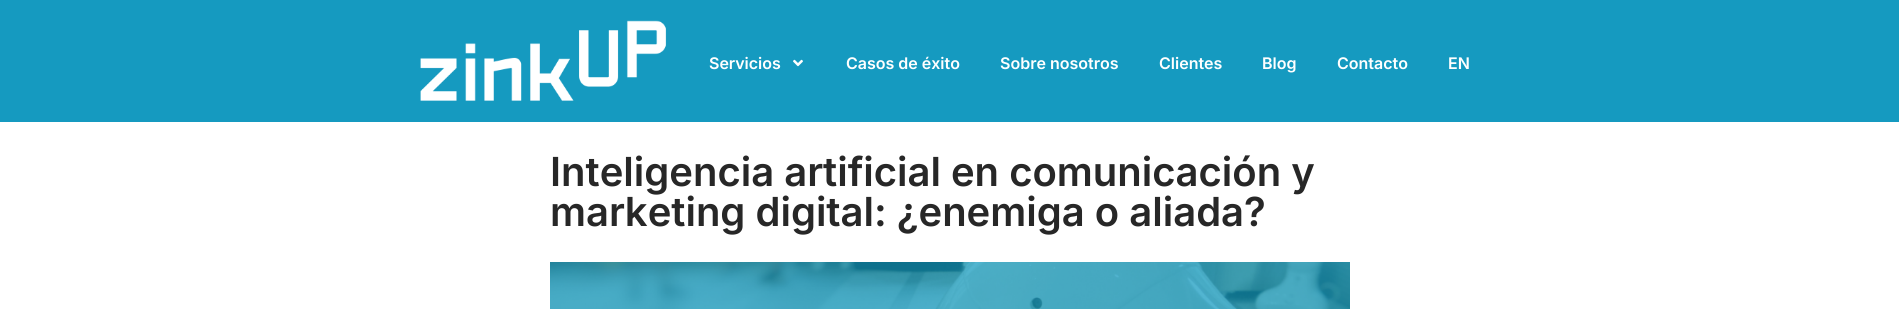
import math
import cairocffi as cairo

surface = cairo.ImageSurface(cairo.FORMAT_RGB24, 1899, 309)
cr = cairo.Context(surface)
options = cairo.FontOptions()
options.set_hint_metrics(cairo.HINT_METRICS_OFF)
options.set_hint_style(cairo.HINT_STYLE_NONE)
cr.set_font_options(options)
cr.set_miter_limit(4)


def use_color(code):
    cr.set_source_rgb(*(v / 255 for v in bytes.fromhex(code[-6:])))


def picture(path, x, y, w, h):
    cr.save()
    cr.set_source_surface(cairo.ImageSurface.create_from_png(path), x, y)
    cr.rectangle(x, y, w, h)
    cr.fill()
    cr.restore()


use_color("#ffffff")
cr.paint()
use_color("#159ac0")
cr.rectangle(0, 0, 1899, 122)
cr.fill()
picture("img1.png", 420, 20, 247, 81)
cr.select_font_face("Inter SemiBold")
cr.set_font_size(16)
use_color("#ffffff")
cr.move_to(709, 69)
cr.show_text("Servicios")
picture("img2.png", 793, 59, 10, 8)
cr.move_to(846, 69)
cr.show_text("Casos de éxito")
cr.move_to(1000, 69)
cr.show_text("Sobre nosotros")
cr.move_to(1159, 69)
cr.show_text("Clientes")
cr.move_to(1262, 69)
cr.show_text("Blog")
cr.move_to(1337, 69)
cr.show_text("Contacto")
cr.move_to(1448, 69)
cr.show_text("EN")
cr.set_font_size(40)
use_color("#272727")
cr.move_to(550, 186)
cr.show_text("Inteligencia artificial en comunicación y")
cr.move_to(550, 226)
cr.show_text("marketing digital: ¿enemiga o aliada?")
picture("img3.png", 550, 262, 800, 47)
surface.write_to_png("result.png")
